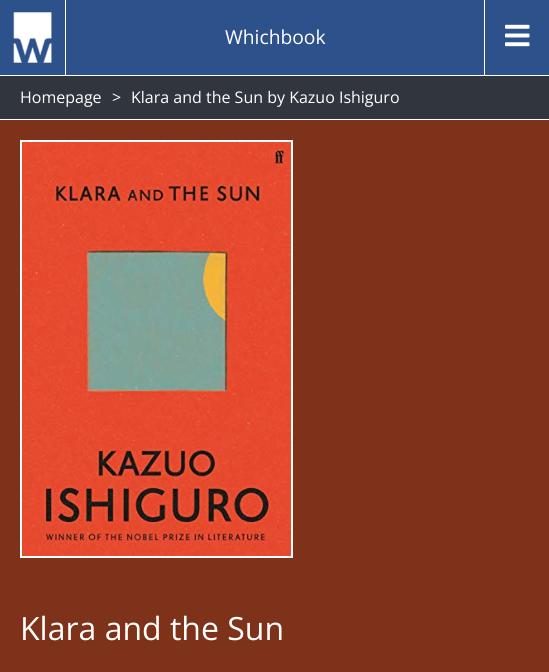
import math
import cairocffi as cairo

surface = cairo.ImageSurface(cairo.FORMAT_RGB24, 549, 672)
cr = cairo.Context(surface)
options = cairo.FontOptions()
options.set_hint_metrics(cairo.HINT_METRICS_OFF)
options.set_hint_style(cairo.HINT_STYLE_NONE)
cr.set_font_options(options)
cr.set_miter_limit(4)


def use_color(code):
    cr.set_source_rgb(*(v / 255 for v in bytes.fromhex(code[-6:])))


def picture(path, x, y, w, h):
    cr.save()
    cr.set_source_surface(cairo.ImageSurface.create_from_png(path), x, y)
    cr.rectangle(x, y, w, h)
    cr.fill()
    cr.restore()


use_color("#31353d")
cr.paint()
use_color("#2d518b")
cr.rectangle(0, 0, 549, 75)
cr.fill()
use_color("#ffffff")
cr.rectangle(0, 75, 549, 1)
cr.fill()
cr.rectangle(65, 0, 1, 75)
cr.fill()
picture("img1.png", 13, 12, 39, 51)
cr.select_font_face("Open Sans")
cr.set_font_size(19.25)
cr.move_to(225, 44)
cr.show_text("Whichbook")
cr.rectangle(484, 0, 1, 75)
cr.fill()
picture("img2.png", 505, 24, 25, 23)
cr.rectangle(0, 119, 549, 1)
cr.fill()
cr.set_font_size(16)
cr.move_to(20, 103)
cr.show_text("Homepage")
cr.move_to(112, 103)
cr.show_text(">")
cr.move_to(131, 103)
cr.show_text("Klara and the Sun by Kazuo Ishiguro")
use_color("#7d3219")
cr.rectangle(0, 120, 549, 552)
cr.fill()
cr.rectangle(21, 141, 271, 416)
use_color("#ffffff")
cr.stroke()
picture("img3.png", 22, 142, 269, 414)
cr.set_font_size(32)
cr.move_to(20, 640)
cr.show_text("Klara and the Sun")
surface.write_to_png("result.png")
